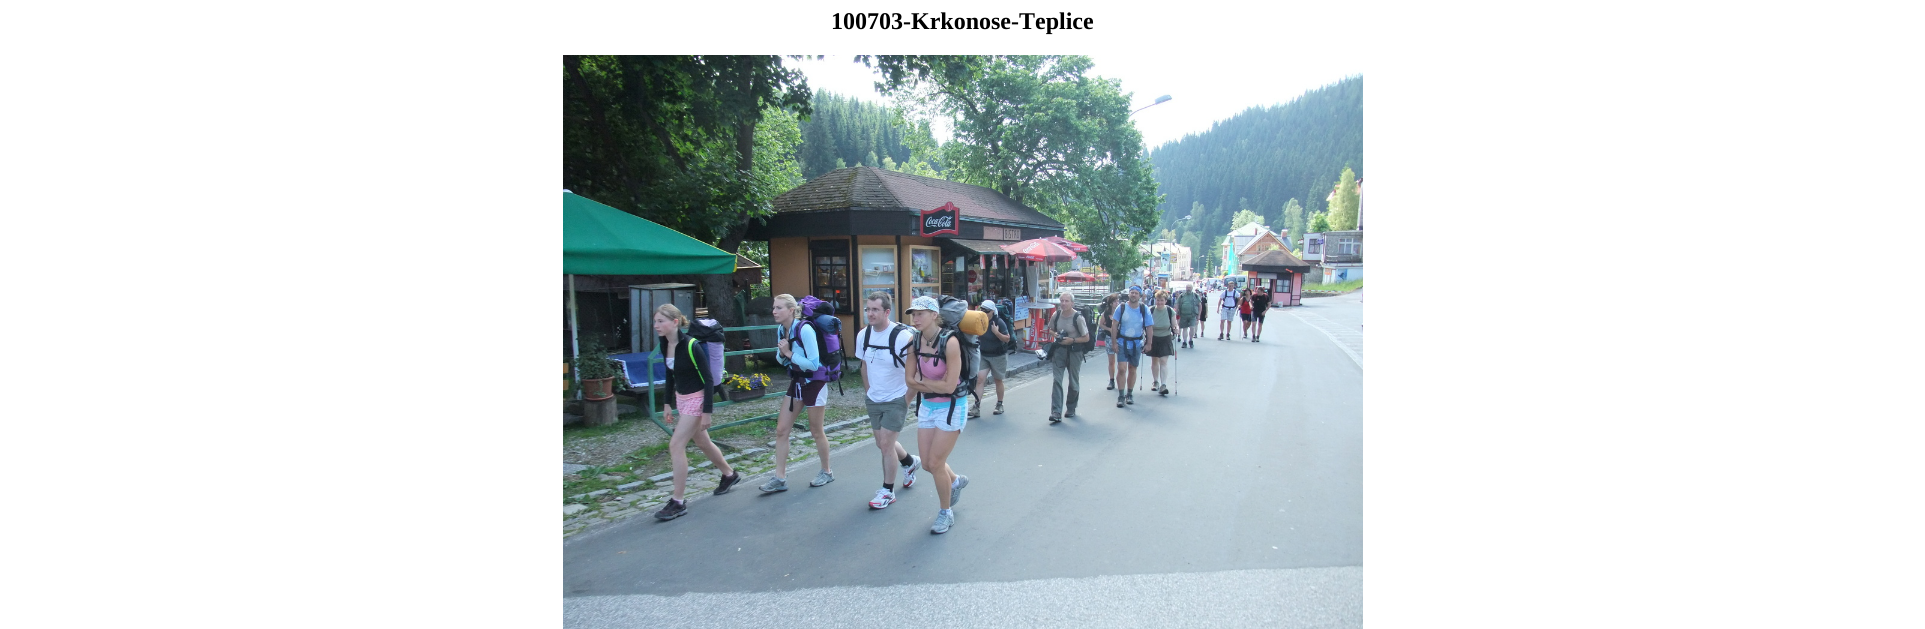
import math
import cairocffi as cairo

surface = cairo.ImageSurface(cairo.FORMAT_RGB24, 1925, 629)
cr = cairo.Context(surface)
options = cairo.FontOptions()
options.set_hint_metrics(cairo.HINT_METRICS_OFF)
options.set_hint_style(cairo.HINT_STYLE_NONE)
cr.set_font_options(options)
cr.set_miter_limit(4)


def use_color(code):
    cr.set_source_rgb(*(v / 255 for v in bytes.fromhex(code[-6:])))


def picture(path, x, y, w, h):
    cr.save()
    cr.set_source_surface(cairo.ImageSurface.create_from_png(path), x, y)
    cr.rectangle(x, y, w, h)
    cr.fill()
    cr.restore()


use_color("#ffffff")
cr.paint()
cr.select_font_face("Liberation Serif", cairo.FONT_SLANT_NORMAL, cairo.FONT_WEIGHT_BOLD)
cr.set_font_size(24)
use_color("#000000")
cr.move_to(831, 29)
cr.show_text("100703-Krkonose-Teplice")
picture("img1.png", 563, 55, 800, 574)
surface.write_to_png("result.png")
